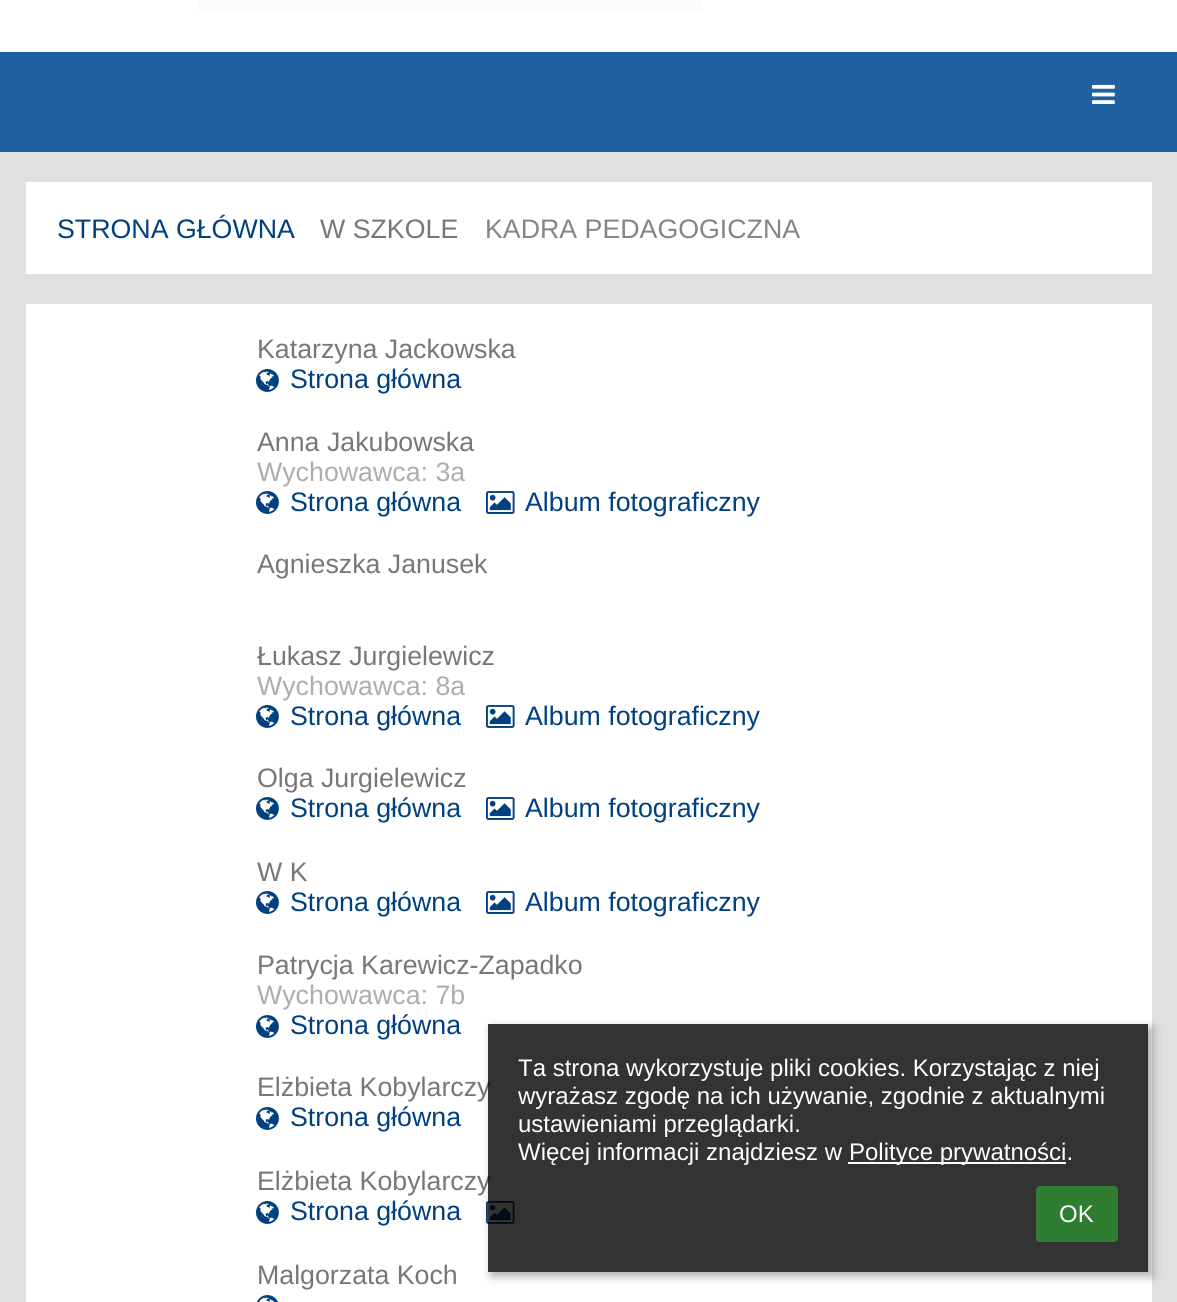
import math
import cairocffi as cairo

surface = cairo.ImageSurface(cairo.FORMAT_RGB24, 1177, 1302)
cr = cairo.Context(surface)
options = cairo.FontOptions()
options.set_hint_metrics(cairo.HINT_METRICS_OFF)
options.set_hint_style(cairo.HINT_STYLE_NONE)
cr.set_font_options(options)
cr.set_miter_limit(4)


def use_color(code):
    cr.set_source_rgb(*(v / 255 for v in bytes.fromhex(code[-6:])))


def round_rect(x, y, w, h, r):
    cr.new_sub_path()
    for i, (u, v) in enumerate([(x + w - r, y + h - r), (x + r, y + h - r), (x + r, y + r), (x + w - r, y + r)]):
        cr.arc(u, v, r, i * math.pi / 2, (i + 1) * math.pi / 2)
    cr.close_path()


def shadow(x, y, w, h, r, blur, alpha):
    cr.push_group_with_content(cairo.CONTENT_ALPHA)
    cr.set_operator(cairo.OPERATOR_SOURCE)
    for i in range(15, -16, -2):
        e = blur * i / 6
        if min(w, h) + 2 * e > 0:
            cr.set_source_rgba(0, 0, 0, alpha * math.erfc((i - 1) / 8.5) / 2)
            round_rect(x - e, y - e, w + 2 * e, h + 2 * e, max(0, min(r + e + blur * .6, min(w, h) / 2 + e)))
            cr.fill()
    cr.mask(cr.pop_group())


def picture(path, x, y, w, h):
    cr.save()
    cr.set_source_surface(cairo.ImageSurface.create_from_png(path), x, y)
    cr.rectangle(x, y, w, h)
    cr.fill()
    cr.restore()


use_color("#ffffff")
cr.paint()
use_color("#fcfcfc")
cr.rectangle(198, 0, 504, 12)
cr.fill()
use_color("#2060a0")
cr.rectangle(0, 52, 1177, 100)
cr.fill()
picture("img1.png", 1092, 84, 23, 20)
use_color("#e0e0e0")
cr.rectangle(0, 152, 1177, 1150)
cr.fill()
use_color("#ffffff")
cr.rectangle(26, 182, 1126, 92)
cr.fill()
cr.select_font_face("Liberation Sans")
cr.set_font_size(26.75)
use_color("#004080")
cr.move_to(57, 238)
cr.show_text("STRONA GŁÓWNA")
use_color("#777777")
cr.move_to(320, 238)
cr.show_text("W SZKOLE")
use_color("#858585")
cr.move_to(485, 238)
cr.show_text("KADRA PEDAGOGICZNA")
use_color("#ffffff")
cr.rectangle(26, 304, 1126, 998)
cr.fill()
use_color("#777777")
cr.move_to(257, 358)
cr.show_text("Katarzyna Jackowska")
picture("img2.png", 256, 369, 23, 23)
use_color("#004080")
cr.move_to(290, 388)
cr.show_text("Strona główna")
use_color("#777777")
cr.move_to(257, 451)
cr.show_text("Anna Jakubowska")
use_color("#adadad")
cr.move_to(257, 481)
cr.show_text("Wychowawca: 3a")
picture("img2.png", 256, 491, 23, 23)
use_color("#004080")
cr.move_to(290, 511)
cr.show_text("Strona główna")
picture("img3.png", 486, 491, 29, 23)
cr.move_to(525, 511)
cr.show_text("Album fotograficzny")
use_color("#777777")
cr.move_to(257, 573)
cr.show_text("Agnieszka Janusek")
cr.move_to(257, 665)
cr.show_text("Łukasz Jurgielewicz")
use_color("#adadad")
cr.move_to(257, 695)
cr.show_text("Wychowawca: 8a")
picture("img2.png", 256, 705, 23, 23)
use_color("#004080")
cr.move_to(290, 725)
cr.show_text("Strona główna")
picture("img3.png", 486, 705, 29, 23)
cr.move_to(525, 725)
cr.show_text("Album fotograficzny")
use_color("#777777")
cr.move_to(257, 787)
cr.show_text("Olga Jurgielewicz")
picture("img2.png", 256, 797, 23, 23)
use_color("#004080")
cr.move_to(290, 817)
cr.show_text("Strona główna")
picture("img3.png", 486, 797, 29, 23)
cr.move_to(525, 817)
cr.show_text("Album fotograficzny")
use_color("#777777")
cr.move_to(257, 881)
cr.show_text("W K")
picture("img2.png", 256, 891, 23, 23)
use_color("#004080")
cr.move_to(290, 911)
cr.show_text("Strona główna")
picture("img3.png", 486, 891, 29, 23)
cr.move_to(525, 911)
cr.show_text("Album fotograficzny")
use_color("#777777")
cr.move_to(257, 974)
cr.show_text("Patrycja Karewicz-Zapadko")
use_color("#adadad")
cr.move_to(257, 1004)
cr.show_text("Wychowawca: 7b")
picture("img2.png", 256, 1015, 23, 23)
use_color("#004080")
cr.move_to(290, 1034)
cr.show_text("Strona główna")
use_color("#777777")
cr.move_to(257, 1096)
cr.show_text("Elżbieta Kobylarczy")
picture("img2.png", 256, 1107, 23, 23)
use_color("#004080")
cr.move_to(290, 1126)
cr.show_text("Strona główna")
use_color("#777777")
cr.move_to(257, 1190)
cr.show_text("Elżbieta Kobylarczy")
picture("img2.png", 256, 1201, 23, 23)
use_color("#004080")
cr.move_to(290, 1220)
cr.show_text("Strona główna")
picture("img3.png", 486, 1201, 29, 23)
use_color("#777777")
cr.move_to(257, 1284)
cr.show_text("Malgorzata Koch")
picture("img4.png", 257, 1295, 21, 7)
cr.save()
cr.set_fill_rule(cairo.FILL_RULE_EVEN_ODD)
cr.new_path()
cr.move_to(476, 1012)
cr.line_to(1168, 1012)
cr.line_to(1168, 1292)
cr.line_to(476, 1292)
cr.close_path()
cr.move_to(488, 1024)
cr.line_to(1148, 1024)
cr.line_to(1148, 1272)
cr.line_to(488, 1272)
cr.close_path()
cr.clip()
use_color("#000000")
shadow(492, 1028, 660, 248, 0, 5, 0.35)
cr.restore()
cr.set_source_rgba(0, 0, 0, 0.8)
cr.rectangle(488, 1024, 660, 248)
cr.fill()
cr.set_font_size(24)
use_color("#ffffff")
cr.move_to(518, 1076)
cr.show_text("Ta strona wykorzystuje pliki cookies. Korzystając z niej")
cr.move_to(518, 1104)
cr.show_text("wyrażasz zgodę na ich używanie, zgodnie z aktualnymi")
cr.move_to(518, 1132)
cr.show_text("ustawieniami przeglądarki.")
cr.move_to(518, 1160)
cr.show_text("Więcej informacji znajdziesz w")
cr.rectangle(848, 1162, 218, 2)
cr.fill()
cr.move_to(849, 1160)
cr.show_text("Polityce prywatności.")
use_color("#2e7d32")
round_rect(1036, 1186, 82, 56, 4)
cr.fill()
use_color("#ffffff")
cr.move_to(1059, 1222)
cr.show_text("OK")
surface.write_to_png("result.png")
